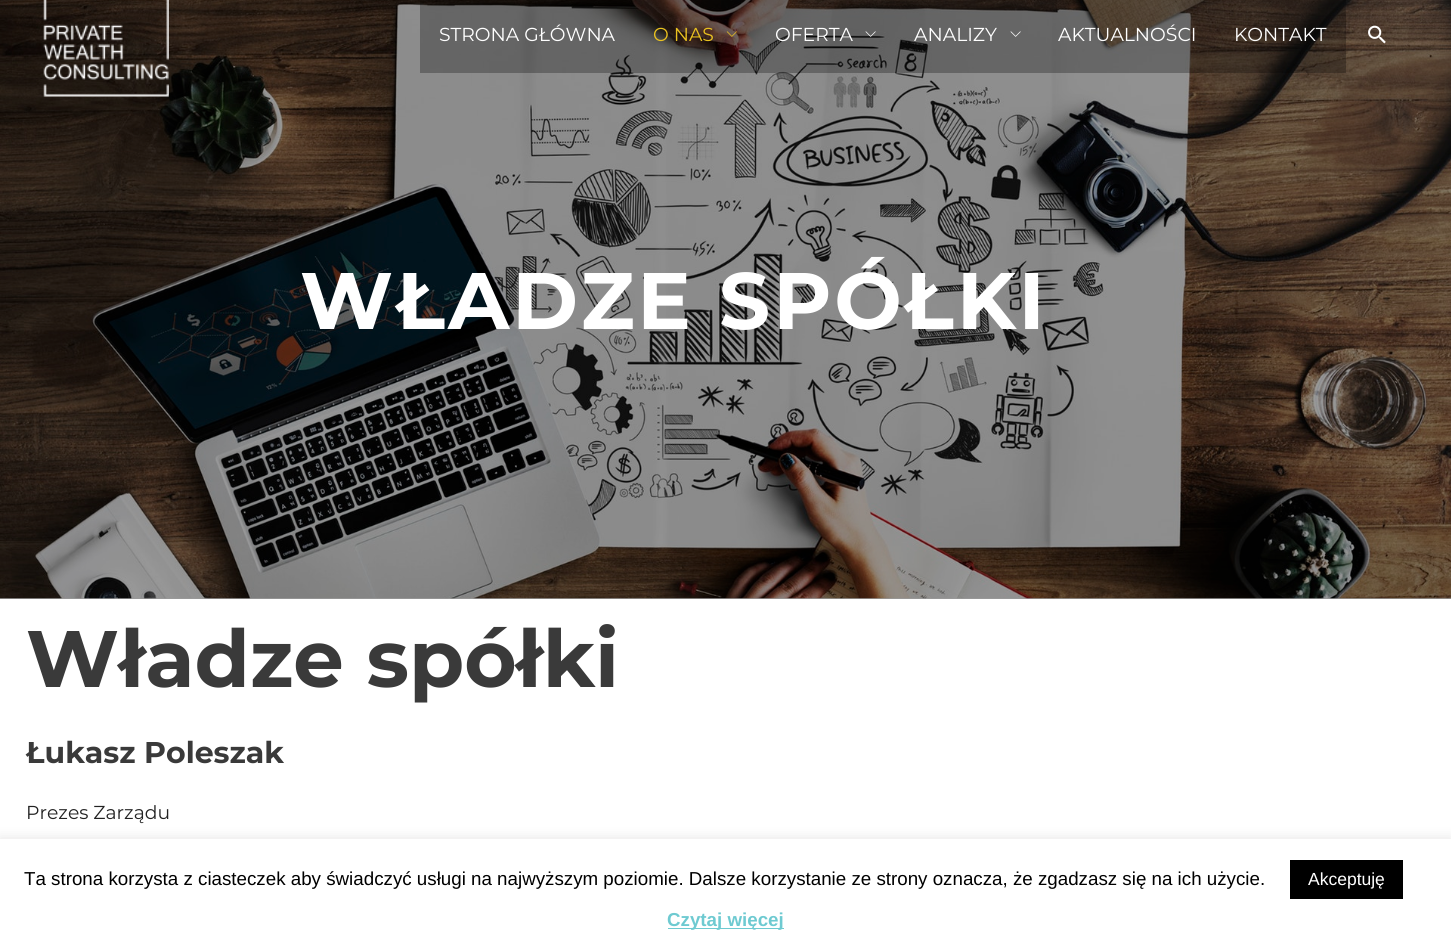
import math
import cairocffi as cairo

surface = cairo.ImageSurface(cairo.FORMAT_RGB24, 1451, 948)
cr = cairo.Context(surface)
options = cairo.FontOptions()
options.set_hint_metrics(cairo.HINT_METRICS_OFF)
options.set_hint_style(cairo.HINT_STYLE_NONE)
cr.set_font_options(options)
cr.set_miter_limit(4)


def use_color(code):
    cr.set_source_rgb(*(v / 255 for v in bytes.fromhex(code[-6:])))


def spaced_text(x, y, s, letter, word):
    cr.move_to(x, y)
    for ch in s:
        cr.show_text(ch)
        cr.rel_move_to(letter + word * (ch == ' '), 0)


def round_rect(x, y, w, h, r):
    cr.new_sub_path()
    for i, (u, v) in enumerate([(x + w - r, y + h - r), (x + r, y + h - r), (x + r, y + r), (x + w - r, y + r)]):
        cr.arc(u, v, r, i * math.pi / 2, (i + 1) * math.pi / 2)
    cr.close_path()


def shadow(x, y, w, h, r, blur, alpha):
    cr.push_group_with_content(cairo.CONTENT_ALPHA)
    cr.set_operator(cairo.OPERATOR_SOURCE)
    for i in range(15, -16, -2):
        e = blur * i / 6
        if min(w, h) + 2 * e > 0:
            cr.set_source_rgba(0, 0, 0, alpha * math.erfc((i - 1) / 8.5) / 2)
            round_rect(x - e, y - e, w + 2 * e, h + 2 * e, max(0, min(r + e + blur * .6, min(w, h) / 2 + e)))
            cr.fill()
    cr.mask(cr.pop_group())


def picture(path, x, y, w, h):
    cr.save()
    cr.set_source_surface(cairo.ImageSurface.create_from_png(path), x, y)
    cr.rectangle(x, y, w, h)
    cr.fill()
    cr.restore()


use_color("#ffffff")
cr.paint()
use_color("#999999")
cr.rectangle(0, 598, 1451, 1)
cr.fill()
picture("img6.png", 0, 0, 1451, 599)
picture("img1.png", 43, 0, 126, 97)
cr.set_source_rgba(0, 0, 0, 0.28)
cr.rectangle(420, 0, 214, 73)
cr.fill()
cr.select_font_face("Montserrat")
cr.set_font_size(18.75)
use_color("#ffffff")
cr.move_to(439, 41)
cr.show_text("STRONA GŁÓWNA")
cr.set_source_rgba(0, 0, 0, 0.28)
cr.rectangle(634, 0, 122, 73)
cr.fill()
use_color("#eac220")
cr.move_to(653, 41)
cr.show_text("O NAS")
picture("img2.png", 726, 31, 11, 6)
cr.set_source_rgba(0, 0, 0, 0.28)
cr.rectangle(756, 0, 139, 73)
cr.fill()
use_color("#ffffff")
cr.move_to(775, 41)
cr.show_text("OFERTA")
picture("img3.png", 865, 31, 11, 6)
cr.set_source_rgba(0, 0, 0, 0.28)
cr.rectangle(895, 0, 145, 73)
cr.fill()
use_color("#ffffff")
cr.move_to(914, 41)
cr.show_text("ANALIZY")
picture("img4.png", 1010, 31, 11, 6)
cr.set_source_rgba(0, 0, 0, 0.28)
cr.rectangle(1040, 0, 175, 73)
cr.fill()
use_color("#ffffff")
cr.move_to(1058, 41)
cr.show_text("AKTUALNOŚCI")
cr.set_source_rgba(0, 0, 0, 0.28)
cr.rectangle(1215, 0, 131, 73)
cr.fill()
use_color("#ffffff")
cr.move_to(1234, 41)
cr.show_text("KONTAKT")
picture("img5.png", 1368, 25, 18, 19)
cr.select_font_face("Montserrat", cairo.FONT_SLANT_NORMAL, cairo.FONT_WEIGHT_BOLD)
cr.set_font_size(80)
spaced_text(300, 329, "WŁADZE SPÓŁKI", 2.75, 0)
use_color("#3a3a3a")
cr.move_to(26, 687)
cr.show_text("Władze spółki")
cr.set_font_size(30)
cr.move_to(26, 763)
cr.show_text("Łukasz Poleszak")
cr.select_font_face("Montserrat")
cr.set_font_size(18.75)
use_color("#222222")
cr.move_to(26, 819)
cr.show_text("Prezes Zarządu")
use_color("#acabab")
shadow(0, 838, 1451, 110, 0, 6, 0.3)
use_color("#ffffff")
cr.rectangle(0, 839, 1451, 109)
cr.fill()
cr.select_font_face("Liberation Sans")
use_color("#000000")
cr.move_to(24, 885)
cr.show_text("Ta strona korzysta z ciasteczek aby świadczyć usługi na najwyższym poziomie. Dalsze korzystanie ze strony oznacza, że zgadzasz się na ich użycie.")
cr.rectangle(1290, 860, 113, 39)
cr.fill()
cr.set_font_size(17.5)
use_color("#ffffff")
cr.move_to(1308, 885)
cr.show_text("Akceptuję")
use_color("#6ecad1")
cr.rectangle(668, 928, 116, 1)
cr.fill()
cr.select_font_face("Liberation Sans", cairo.FONT_SLANT_NORMAL, cairo.FONT_WEIGHT_BOLD)
cr.set_font_size(18.75)
cr.move_to(667, 926)
cr.show_text("Czytaj więcej")
surface.write_to_png("result.png")
